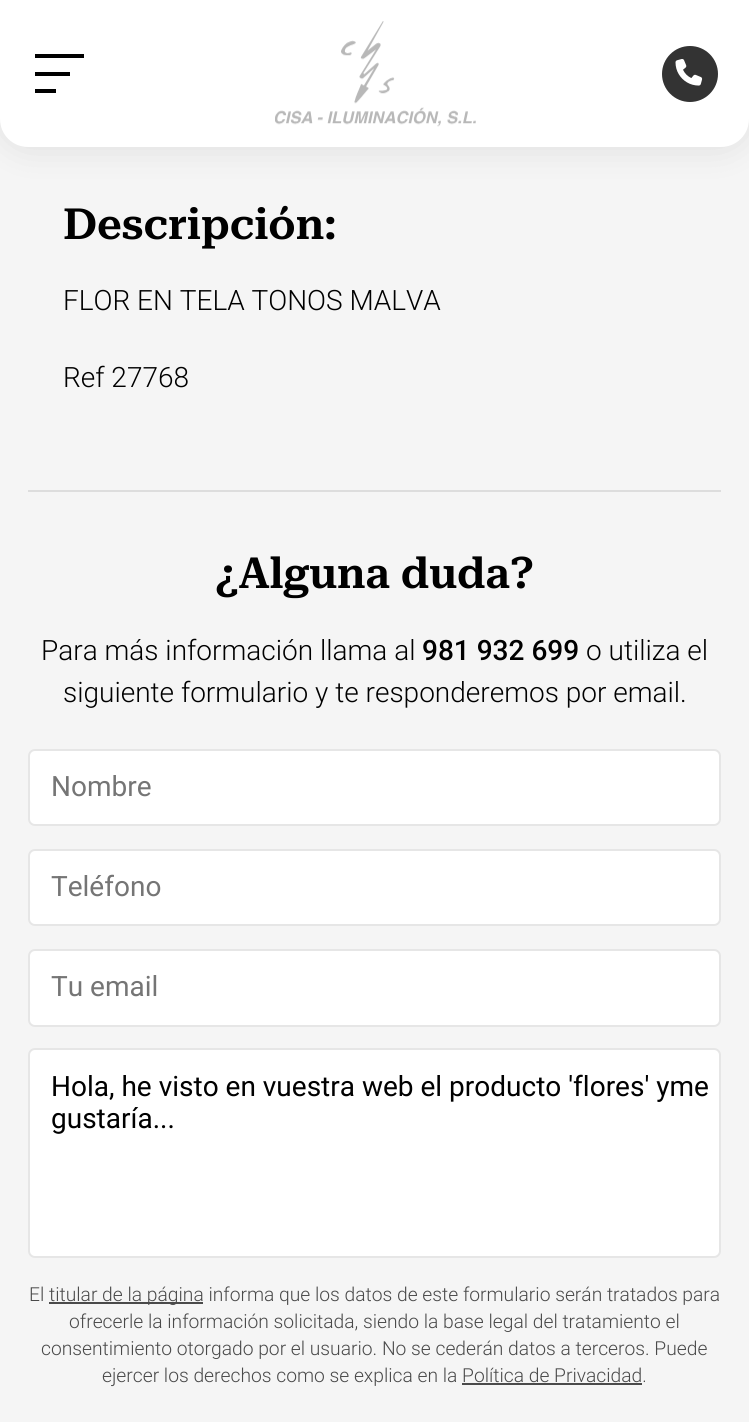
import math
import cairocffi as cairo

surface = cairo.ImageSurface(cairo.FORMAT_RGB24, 749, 1422)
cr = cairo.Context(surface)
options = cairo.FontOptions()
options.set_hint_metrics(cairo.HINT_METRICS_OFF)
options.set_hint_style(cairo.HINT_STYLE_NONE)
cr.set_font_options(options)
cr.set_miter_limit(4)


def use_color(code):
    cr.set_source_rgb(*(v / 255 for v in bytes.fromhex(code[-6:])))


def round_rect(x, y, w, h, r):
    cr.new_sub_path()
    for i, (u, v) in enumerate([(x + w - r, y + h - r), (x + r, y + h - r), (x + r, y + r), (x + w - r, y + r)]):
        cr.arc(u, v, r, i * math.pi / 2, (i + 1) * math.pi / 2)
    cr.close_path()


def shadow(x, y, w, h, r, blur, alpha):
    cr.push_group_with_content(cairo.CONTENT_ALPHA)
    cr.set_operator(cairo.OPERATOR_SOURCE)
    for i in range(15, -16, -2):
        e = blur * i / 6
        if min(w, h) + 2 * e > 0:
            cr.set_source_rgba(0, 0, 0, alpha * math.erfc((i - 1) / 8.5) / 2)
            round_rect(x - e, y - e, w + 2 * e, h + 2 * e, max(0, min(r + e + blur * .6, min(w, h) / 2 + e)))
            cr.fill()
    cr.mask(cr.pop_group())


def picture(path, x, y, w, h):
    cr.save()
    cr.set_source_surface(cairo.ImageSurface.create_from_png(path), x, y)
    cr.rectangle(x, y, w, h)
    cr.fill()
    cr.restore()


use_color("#f5f5f5")
cr.paint()
use_color("#000000")
shadow(0, 0, 749, 147, 28, 17.5, 0.1)
use_color("#ffffff")
cr.new_path()
cr.move_to(0, 0)
cr.line_to(749, 0)
cr.line_to(749, 119)
cr.curve_to(749, 134.5, 736.5, 147, 721, 147)
cr.line_to(28, 147)
cr.curve_to(12.5, 147, 0, 134.5, 0, 119)
cr.close_path()
cr.fill()
use_color("#000000")
cr.rectangle(35, 54, 49, 4)
cr.fill()
cr.rectangle(35, 72, 35, 4)
cr.fill()
cr.rectangle(35, 89, 21, 4)
cr.fill()
picture("img1.png", 275, 21, 201, 106)
use_color("#333333")
cr.arc(690, 74, 28, 0, 2 * math.pi)
cr.fill()
picture("img2.png", 675, 59, 28, 27)
cr.select_font_face("Roboto Serif SemiBold")
cr.set_font_size(43)
use_color("#000000")
cr.move_to(63, 239)
cr.show_text("Descripción:")
cr.select_font_face("Roboto Light")
cr.set_font_size(28)
cr.move_to(63, 310)
cr.show_text("FLOR EN TELA TONOS MALVA")
cr.move_to(63, 387)
cr.show_text("Ref 27768")
use_color("#dddddd")
cr.rectangle(28, 490, 693, 2)
cr.fill()
cr.select_font_face("Roboto Serif SemiBold")
cr.set_font_size(43)
use_color("#000000")
cr.move_to(215, 588)
cr.show_text("¿Alguna duda?")
cr.select_font_face("Roboto Light")
cr.set_font_size(28)
cr.move_to(41, 660)
cr.show_text("Para más información llama al")
cr.select_font_face("Roboto Medium")
cr.move_to(422, 660)
cr.show_text("981 932 699")
cr.select_font_face("Roboto Light")
cr.move_to(586, 660)
cr.show_text("o utiliza el")
cr.move_to(63, 702)
cr.show_text("siguiente formulario y te responderemos por email.")
use_color("#ffffff")
round_rect(28, 749, 693, 77, 7)
cr.fill()
round_rect(29, 750, 691, 75, 6)
cr.set_source_rgba(0, 0, 0, 0.1)
cr.stroke()
cr.select_font_face("Roboto")
use_color("#757575")
cr.move_to(51, 796)
cr.show_text("Nombre")
use_color("#ffffff")
round_rect(28, 849, 693, 77, 7)
cr.fill()
round_rect(29, 850, 691, 75, 6)
cr.set_source_rgba(0, 0, 0, 0.1)
cr.stroke()
use_color("#757575")
cr.move_to(51, 896)
cr.show_text("Teléfono")
use_color("#ffffff")
round_rect(28, 949, 693, 78, 7)
cr.fill()
round_rect(29, 950, 691, 76, 6)
cr.set_source_rgba(0, 0, 0, 0.1)
cr.stroke()
use_color("#757575")
cr.move_to(51, 996)
cr.show_text("Tu email")
use_color("#ffffff")
round_rect(28, 1048, 693, 210, 7)
cr.fill()
round_rect(29, 1049, 691, 208, 6)
cr.set_source_rgba(0, 0, 0, 0.1)
cr.stroke()
use_color("#000000")
cr.move_to(51, 1096)
cr.show_text("Hola, he visto en vuestra web el producto 'flores' yme")
cr.move_to(51, 1128)
cr.show_text("gustaría...")
cr.select_font_face("Roboto Light")
cr.set_font_size(19.25)
use_color("#4a4a4a")
cr.move_to(29, 1301)
cr.show_text("El")
cr.rectangle(49, 1302, 154, 2)
cr.fill()
cr.move_to(49, 1301)
cr.show_text("titular de la página informa que los datos de este formulario serán tratados para")
cr.move_to(69, 1328)
cr.show_text("ofrecerle la información solicitada, siendo la base legal del tratamiento el")
cr.move_to(41, 1355)
cr.show_text("consentimiento otorgado por el usuario. No se cederán datos a terceros. Puede")
cr.move_to(102, 1382)
cr.show_text("ejercer los derechos como se explica en la Política de Privacidad.")
cr.rectangle(462, 1383, 180, 2)
cr.fill()
surface.write_to_png("result.png")
